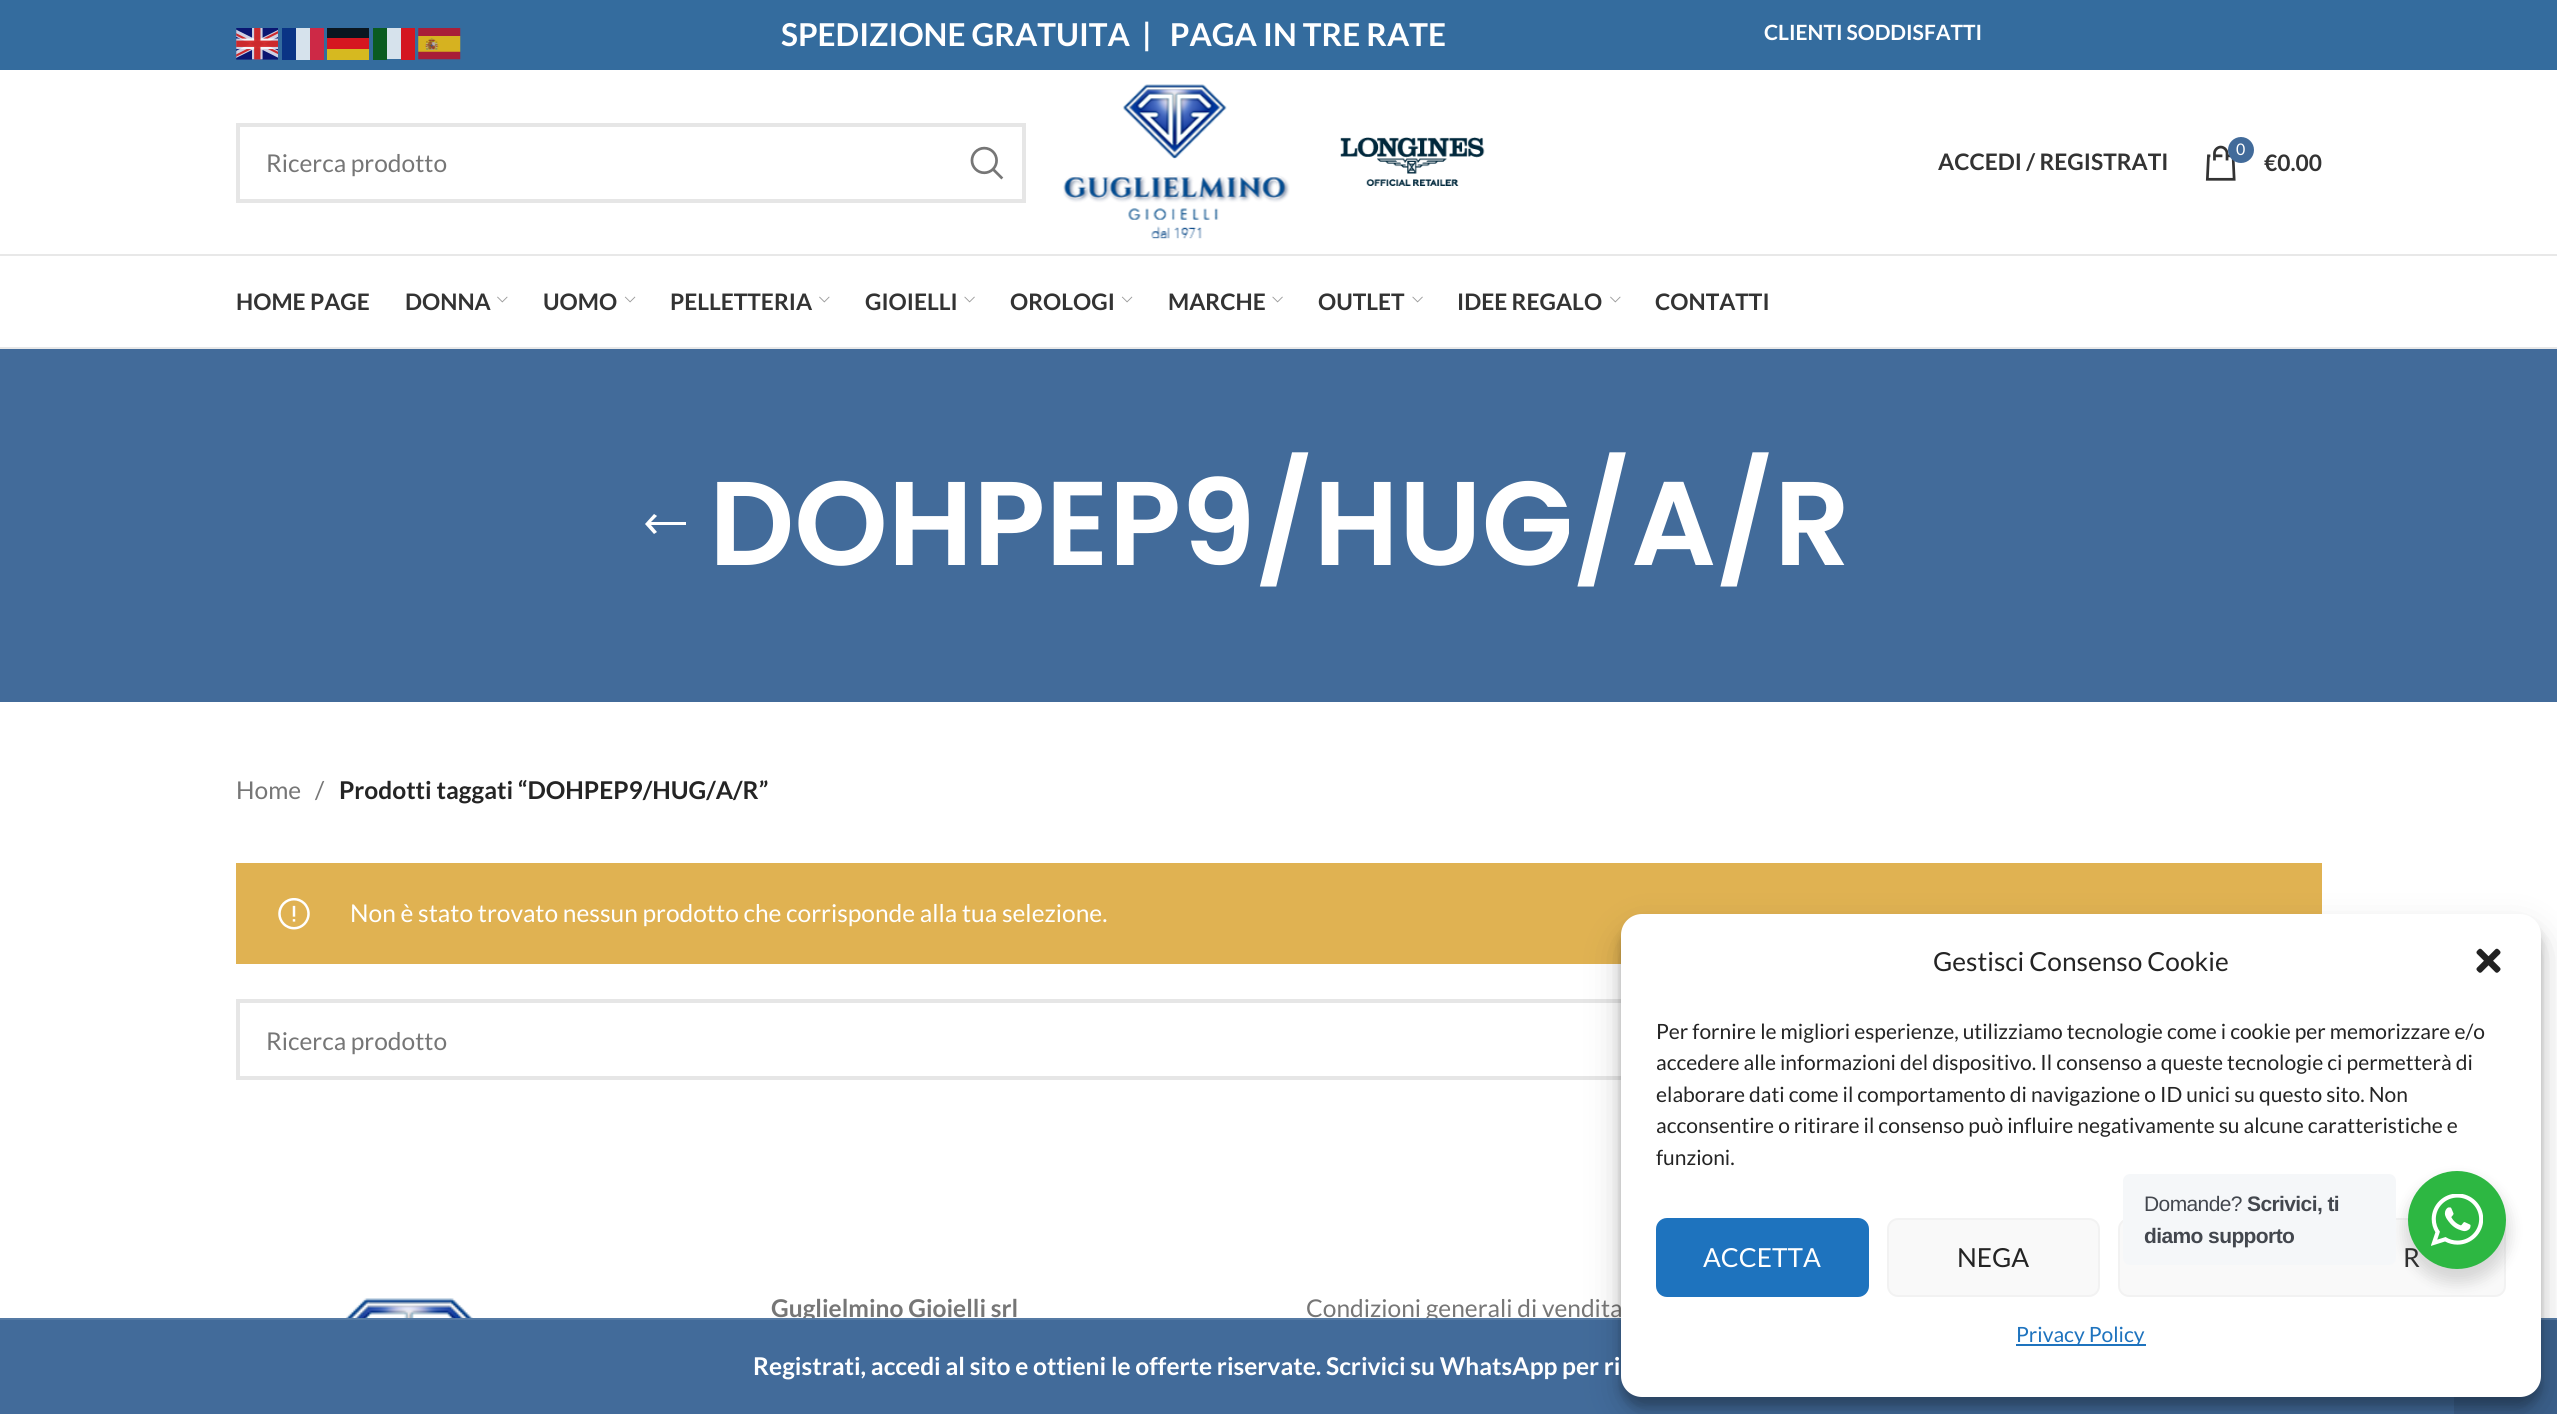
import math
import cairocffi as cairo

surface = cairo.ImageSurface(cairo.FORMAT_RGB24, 2557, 1414)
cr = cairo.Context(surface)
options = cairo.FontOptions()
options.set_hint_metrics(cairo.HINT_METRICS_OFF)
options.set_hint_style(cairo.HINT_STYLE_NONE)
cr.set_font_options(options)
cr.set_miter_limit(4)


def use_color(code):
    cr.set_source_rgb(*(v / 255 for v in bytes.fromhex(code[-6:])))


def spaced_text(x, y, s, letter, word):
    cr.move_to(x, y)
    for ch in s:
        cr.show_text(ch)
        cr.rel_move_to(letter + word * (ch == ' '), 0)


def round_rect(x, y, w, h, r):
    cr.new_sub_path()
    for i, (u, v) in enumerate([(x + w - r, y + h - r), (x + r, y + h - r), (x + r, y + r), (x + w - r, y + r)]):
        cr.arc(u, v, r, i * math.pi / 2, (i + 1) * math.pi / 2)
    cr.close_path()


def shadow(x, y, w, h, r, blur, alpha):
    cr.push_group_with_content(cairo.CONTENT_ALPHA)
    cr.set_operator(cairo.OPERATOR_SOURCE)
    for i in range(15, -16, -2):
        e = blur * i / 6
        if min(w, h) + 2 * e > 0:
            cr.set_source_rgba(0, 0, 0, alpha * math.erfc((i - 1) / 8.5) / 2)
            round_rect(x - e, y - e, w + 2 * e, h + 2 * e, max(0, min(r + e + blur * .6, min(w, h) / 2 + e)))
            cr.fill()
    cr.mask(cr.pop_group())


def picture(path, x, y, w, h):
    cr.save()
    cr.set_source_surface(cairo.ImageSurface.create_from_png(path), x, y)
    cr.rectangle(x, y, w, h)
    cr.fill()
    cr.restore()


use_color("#ffffff")
cr.paint()
use_color("#346c9e")
cr.rectangle(0, 0, 2557, 70)
cr.fill()
picture("img1.png", 236, 28, 42, 32)
use_color("#0a3485")
cr.rectangle(282, 28, 14, 32)
cr.fill()
use_color("#d6e2ec")
cr.rectangle(296, 28, 14, 32)
cr.fill()
use_color("#cd2946")
cr.rectangle(310, 28, 14, 32)
cr.fill()
use_color("#0a1620")
cr.rectangle(327, 28, 42, 10)
cr.fill()
use_color("#0a5b20")
cr.rectangle(373, 28, 14, 32)
cr.fill()
use_color("#d6e2ec")
cr.rectangle(387, 28, 14, 31)
cr.fill()
use_color("#d41620")
cr.rectangle(401, 28, 14, 32)
cr.fill()
picture("img2.png", 418, 28, 43, 32)
use_color("#d61620")
cr.rectangle(327, 38, 42, 11)
cr.fill()
use_color("#d6b920")
cr.rectangle(327, 49, 42, 11)
cr.fill()
cr.select_font_face("Lato", cairo.FONT_SLANT_NORMAL, cairo.FONT_WEIGHT_BOLD)
cr.set_font_size(31.5)
use_color("#ffffff")
cr.move_to(781, 46)
cr.show_text("SPEDIZIONE GRATUITA  |   PAGA IN TRE RATE")
cr.set_font_size(21)
cr.move_to(1764, 40)
cr.show_text("CLIENTI SODDISFATTI")
use_color("#e8e8e8")
cr.rectangle(0, 254, 2557, 2)
cr.fill()
cr.rectangle(238, 125, 786, 76)
use_color("#e6e6e6")
cr.set_line_width(4)
cr.stroke()
cr.select_font_face("Lato")
cr.set_font_size(24.5)
use_color("#767676")
cr.move_to(266, 172)
cr.show_text("Ricerca prodotto")
picture("img3.png", 970, 146, 34, 34)
picture("img4.png", 1063, 84, 227, 155)
picture("img5.png", 1340, 137, 145, 49)
cr.select_font_face("Lato", cairo.FONT_SLANT_NORMAL, cairo.FONT_WEIGHT_BOLD)
cr.set_font_size(22.75)
use_color("#333333")
cr.move_to(1938, 170)
cr.show_text("ACCEDI / REGISTRATI")
picture("img6.png", 2205, 145, 31, 36)
use_color("#426b9a")
cr.arc(2241, 150, 13, 0, 2 * math.pi)
cr.fill()
cr.select_font_face("Lato")
cr.set_font_size(16)
use_color("#ffffff")
cr.move_to(2236, 155)
cr.show_text("0")
cr.select_font_face("Lato", cairo.FONT_SLANT_NORMAL, cairo.FONT_WEIGHT_BOLD)
cr.set_font_size(22.75)
use_color("#333333")
cr.move_to(2264, 171)
cr.show_text("€0.00")
use_color("#e8e8e8")
cr.rectangle(0, 347, 2557, 2)
cr.fill()
use_color("#333333")
cr.move_to(236, 310)
cr.show_text("HOME PAGE")
cr.move_to(405, 310)
cr.show_text("DONNA")
picture("img7.png", 497, 296, 11, 7)
cr.move_to(543, 310)
cr.show_text("UOMO")
picture("img8.png", 624, 296, 12, 7)
cr.move_to(670, 310)
cr.show_text("PELLETTERIA")
picture("img7.png", 819, 296, 11, 7)
cr.move_to(865, 310)
cr.show_text("GIOIELLI")
picture("img9.png", 964, 296, 11, 7)
cr.move_to(1010, 310)
cr.show_text("OROLOGI")
picture("img8.png", 1121, 296, 12, 7)
cr.move_to(1168, 310)
cr.show_text("MARCHE")
picture("img9.png", 1272, 296, 11, 7)
cr.move_to(1318, 310)
cr.show_text("OUTLET")
picture("img9.png", 1412, 296, 11, 7)
cr.move_to(1457, 310)
cr.show_text("IDEE REGALO")
picture("img7.png", 1610, 296, 11, 7)
cr.move_to(1655, 310)
cr.show_text("CONTATTI")
use_color("#426b9a")
cr.rectangle(0, 349, 2557, 353)
cr.fill()
use_color("#ffffff")
cr.new_path()
cr.move_to(657, 532)
cr.line_to(651, 525)
cr.line_to(686, 525)
cr.line_to(686, 522)
cr.line_to(651, 522)
cr.line_to(657, 516)
cr.line_to(654, 514)
cr.line_to(645, 524)
cr.line_to(654, 534)
cr.close_path()
cr.fill()
cr.select_font_face("Poppins SemiBold")
cr.set_font_size(119)
cr.move_to(709, 565)
cr.show_text("DOHPEP9/HUG/A/R")
cr.select_font_face("Lato")
cr.set_font_size(24.5)
use_color("#767676")
cr.move_to(236, 799)
cr.show_text("Home")
cr.move_to(315, 799)
cr.show_text("/")
cr.select_font_face("Lato", cairo.FONT_SLANT_NORMAL, cairo.FONT_WEIGHT_BOLD)
use_color("#242424")
cr.move_to(339, 799)
cr.show_text("Prodotti taggati “DOHPEP9/HUG/A/R”")
use_color("#e0b252")
cr.rectangle(236, 863, 2086, 101)
cr.fill()
picture("img10.png", 278, 898, 32, 32)
cr.select_font_face("Lato")
use_color("#ffffff")
cr.move_to(350, 922)
cr.show_text("Non è stato trovato nessun prodotto che corrisponde alla tua selezione.")
cr.rectangle(238, 1001, 2082, 77)
use_color("#e6e6e6")
cr.stroke()
use_color("#767676")
cr.move_to(266, 1050)
cr.show_text("Ricerca prodotto")
picture("img11.png", 345, 1298, 128, 20)
cr.select_font_face("Lato", cairo.FONT_SLANT_NORMAL, cairo.FONT_WEIGHT_BOLD)
cr.move_to(771, 1317)
cr.show_text("Guglielmino Gioielli srl")
cr.select_font_face("Lato")
cr.move_to(1306, 1317)
cr.show_text("Condizioni generali di vendita")
use_color("#426b9a")
cr.rectangle(0, 1320, 2454, 94)
cr.fill()
use_color("#557aa4")
cr.rectangle(0, 1318, 2557, 2)
cr.fill()
use_color("#3b608b")
cr.rectangle(2454, 1320, 103, 94)
cr.fill()
use_color("#000000")
shadow(1621, 924, 920, 483, 21, 5, 0.23)
shadow(1621, 931, 920, 483, 21, 17.5, 0.19)
use_color("#ffffff")
round_rect(1621, 914, 920, 483, 21)
cr.fill()
cr.set_font_size(26.25)
use_color("#242424")
cr.move_to(1933, 971)
cr.show_text("Gestisci Consenso Cookie")
picture("img12.png", 2476, 948, 25, 25)
cr.set_font_size(21)
cr.move_to(1656, 1039)
cr.show_text("Per fornire le migliori esperienze, utilizziamo tecnologie come i cookie per memorizzare e/o")
cr.move_to(1656, 1070)
cr.show_text("accedere alle informazioni del dispositivo. Il consenso a queste tecnologie ci permetterà di")
cr.move_to(1656, 1102)
cr.show_text("elaborare dati come il comportamento di navigazione o ID unici su questo sito. Non")
cr.move_to(1656, 1133)
cr.show_text("acconsentire o ritirare il consenso può influire negativamente su alcune caratteristiche e")
cr.move_to(1656, 1165)
cr.show_text("funzioni.")
use_color("#1e73be")
round_rect(1657, 1219, 211, 77, 10)
cr.fill_preserve()
cr.set_line_width(2)
cr.stroke()
cr.set_font_size(26.25)
use_color("#ffffff")
cr.move_to(1703, 1267)
cr.show_text("ACCETTA")
use_color("#f9f9f9")
round_rect(1888, 1219, 211, 77, 10)
cr.fill_preserve()
use_color("#f2f2f2")
cr.stroke()
use_color("#242424")
cr.move_to(1957, 1267)
cr.show_text("NEGA")
use_color("#f9f9f9")
round_rect(2119, 1219, 386, 77, 10)
cr.fill_preserve()
use_color("#f2f2f2")
cr.stroke()
use_color("#333333")
cr.move_to(2403, 1267)
cr.show_text("R")
use_color("#1e73be")
cr.rectangle(2016, 1344, 130, 2)
cr.fill()
cr.set_font_size(21)
cr.move_to(2016, 1342)
cr.show_text("Privacy Policy")
use_color("#000000")
shadow(2405, 1178, 105, 105, 52.5, 7, 0.14)
use_color("#f5f7f9")
round_rect(2123, 1174, 273, 91, 7)
cr.fill()
cr.select_font_face("Liberation Sans")
use_color("#43474e")
spaced_text(2144, 1211, "Domande?", -0.6, 0)
cr.select_font_face("Liberation Sans", cairo.FONT_SLANT_NORMAL, cairo.FONT_WEIGHT_BOLD)
spaced_text(2247, 1211, "Scrivici, ti", -0.6, 0)
spaced_text(2144, 1243, "diamo supporto", -0.6, 0)
use_color("#2db742")
cr.new_path()
cr.arc(2457, 1220, 49, 0, 2 * math.pi)
cr.fill()
picture("img13.png", 2431, 1194, 52, 52)
cr.select_font_face("Lato", cairo.FONT_SLANT_NORMAL, cairo.FONT_WEIGHT_BOLD)
cr.set_font_size(24.5)
use_color("#ffffff")
cr.move_to(753, 1375)
cr.show_text("Registrati, accedi al sito e ottieni le offerte riservate. Scrivici su WhatsApp per ri")
surface.write_to_png("result.png")
